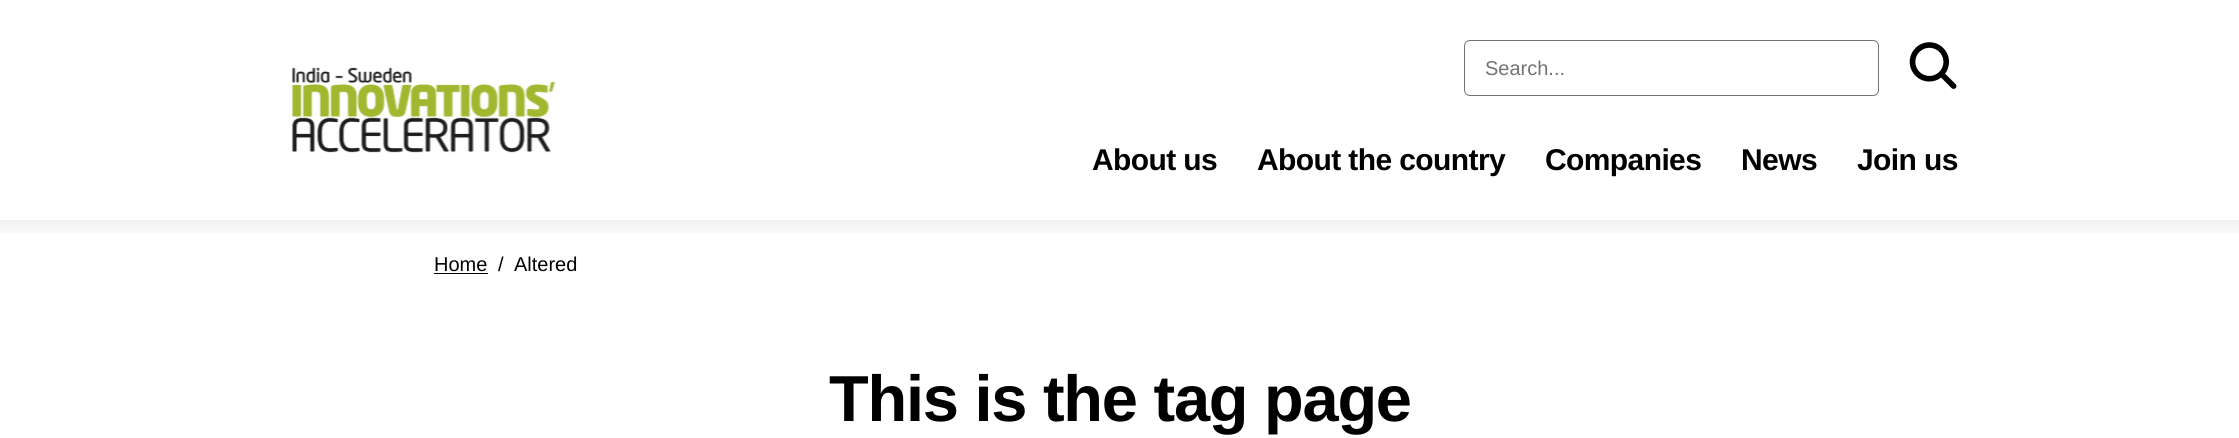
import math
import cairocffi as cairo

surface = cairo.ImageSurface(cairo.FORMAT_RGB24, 2239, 438)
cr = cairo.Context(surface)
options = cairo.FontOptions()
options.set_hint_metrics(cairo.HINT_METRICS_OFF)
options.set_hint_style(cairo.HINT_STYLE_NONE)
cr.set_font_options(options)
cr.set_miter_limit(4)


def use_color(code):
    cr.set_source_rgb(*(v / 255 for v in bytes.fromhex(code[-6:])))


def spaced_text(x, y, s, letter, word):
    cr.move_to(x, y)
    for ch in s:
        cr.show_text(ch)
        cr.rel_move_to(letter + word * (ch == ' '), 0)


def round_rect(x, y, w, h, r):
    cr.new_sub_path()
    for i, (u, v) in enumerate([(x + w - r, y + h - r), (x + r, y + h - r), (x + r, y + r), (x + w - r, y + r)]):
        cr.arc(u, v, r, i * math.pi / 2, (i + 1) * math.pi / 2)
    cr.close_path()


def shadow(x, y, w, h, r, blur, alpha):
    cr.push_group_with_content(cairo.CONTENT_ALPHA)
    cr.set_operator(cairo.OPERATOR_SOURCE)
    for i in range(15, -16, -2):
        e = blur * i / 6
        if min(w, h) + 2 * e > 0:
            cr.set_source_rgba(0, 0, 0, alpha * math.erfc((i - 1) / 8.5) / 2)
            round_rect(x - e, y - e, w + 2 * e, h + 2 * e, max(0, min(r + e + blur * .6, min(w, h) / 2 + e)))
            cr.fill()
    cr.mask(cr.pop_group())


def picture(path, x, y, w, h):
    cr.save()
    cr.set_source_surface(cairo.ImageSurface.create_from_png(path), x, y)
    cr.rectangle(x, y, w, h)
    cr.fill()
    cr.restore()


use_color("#ffffff")
cr.paint()
cr.save()
cr.rectangle(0, 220, 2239, 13)
cr.clip()
use_color("#000000")
shadow(-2, 3, 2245, 225, 0, 9.5, 0.07)
cr.restore()
picture("img1.png", 291, 67, 265, 86)
round_rect(1464.5, 40.5, 414, 55, 5.5)
use_color("#737373")
cr.set_line_width(1)
cr.stroke()
cr.select_font_face("Liberation Sans")
cr.set_font_size(20)
cr.move_to(1485, 75)
cr.show_text("Search...")
picture("img2.png", 1909, 42, 48, 47)
cr.select_font_face("Liberation Sans", cairo.FONT_SLANT_NORMAL, cairo.FONT_WEIGHT_BOLD)
cr.set_font_size(30)
use_color("#000000")
spaced_text(1092, 170, "About us", -0.6, 0)
spaced_text(1257, 170, "About the country", -0.6, 0)
spaced_text(1545, 170, "Companies", -0.6, 0)
spaced_text(1741, 170, "News", -0.6, 0)
spaced_text(1857, 170, "Join us", -0.6, 0)
cr.select_font_face("Liberation Sans")
cr.set_font_size(20)
cr.move_to(434, 271)
cr.show_text("Home")
cr.rectangle(434, 273, 54, 1)
cr.fill()
cr.move_to(498, 271)
cr.show_text("/")
cr.move_to(514, 271)
cr.show_text("Altered")
cr.select_font_face("Liberation Sans", cairo.FONT_SLANT_NORMAL, cairo.FONT_WEIGHT_BOLD)
cr.set_font_size(65)
spaced_text(829, 421, "This is the tag page", -1.25, 0)
surface.write_to_png("result.png")
